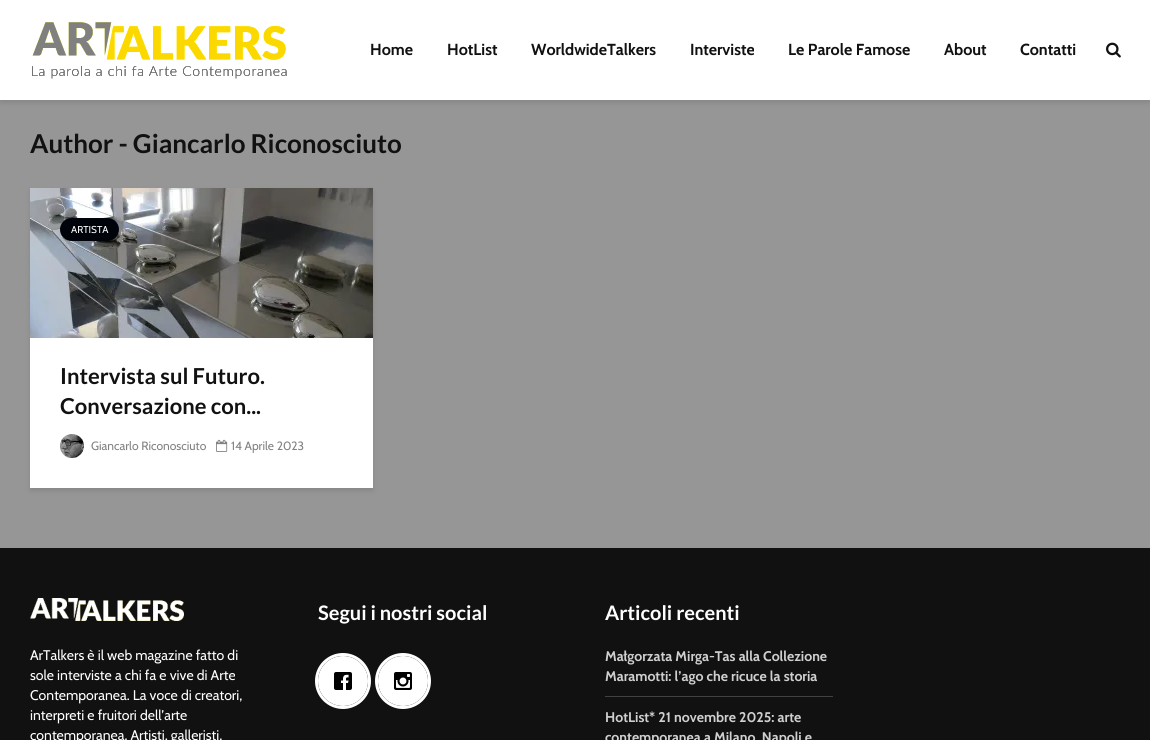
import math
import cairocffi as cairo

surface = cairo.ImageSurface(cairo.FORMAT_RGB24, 1150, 740)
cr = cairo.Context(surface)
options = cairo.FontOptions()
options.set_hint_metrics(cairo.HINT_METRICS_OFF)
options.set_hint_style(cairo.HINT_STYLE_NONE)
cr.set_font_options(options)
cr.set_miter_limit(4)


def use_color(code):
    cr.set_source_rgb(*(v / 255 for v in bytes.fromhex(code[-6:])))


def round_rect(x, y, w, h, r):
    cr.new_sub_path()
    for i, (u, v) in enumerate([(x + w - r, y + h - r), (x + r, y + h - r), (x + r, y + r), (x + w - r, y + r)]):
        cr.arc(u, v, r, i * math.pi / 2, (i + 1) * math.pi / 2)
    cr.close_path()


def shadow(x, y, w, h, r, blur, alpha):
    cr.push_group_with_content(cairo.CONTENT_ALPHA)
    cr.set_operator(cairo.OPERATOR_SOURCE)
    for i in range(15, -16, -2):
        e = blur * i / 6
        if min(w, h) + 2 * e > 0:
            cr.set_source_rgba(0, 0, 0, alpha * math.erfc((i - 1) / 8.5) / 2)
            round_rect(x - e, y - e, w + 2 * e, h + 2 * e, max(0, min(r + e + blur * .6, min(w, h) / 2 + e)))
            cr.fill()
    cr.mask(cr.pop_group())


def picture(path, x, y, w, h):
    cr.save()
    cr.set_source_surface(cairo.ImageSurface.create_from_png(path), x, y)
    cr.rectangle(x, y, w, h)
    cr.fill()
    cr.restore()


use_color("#969696")
cr.paint()
use_color("#000101")
shadow(0, 3, 1150, 100, 0, 2.5, 0.1)
use_color("#ffffff")
cr.rectangle(0, 0, 1150, 100)
cr.fill()
picture("img1.png", 32, 22, 255, 57)
cr.select_font_face("Cabin", cairo.FONT_SLANT_NORMAL, cairo.FONT_WEIGHT_BOLD)
cr.set_font_size(16)
use_color("#111111")
cr.move_to(370, 55)
cr.show_text("Home")
cr.move_to(447, 55)
cr.show_text("HotList")
cr.move_to(531, 55)
cr.show_text("WorldwideTalkers")
cr.move_to(690, 55)
cr.show_text("Interviste")
cr.move_to(788, 55)
cr.show_text("Le Parole Famose")
cr.move_to(944, 55)
cr.show_text("About")
cr.move_to(1020, 55)
cr.show_text("Contatti")
picture("img2.png", 1106, 42, 15, 16)
cr.select_font_face("Lato", cairo.FONT_SLANT_NORMAL, cairo.FONT_WEIGHT_BOLD)
cr.set_font_size(26)
cr.move_to(30, 153)
cr.show_text("Author - Giancarlo Riconosciuto")
use_color("#000101")
shadow(30, 191, 343, 300, 0, 2.5, 0.1)
use_color("#ffffff")
cr.rectangle(30, 338, 343, 150)
cr.fill()
picture("img3.png", 30, 188, 343, 150)
use_color("#00040a")
round_rect(60, 218, 59, 23, 11.5)
cr.fill()
cr.select_font_face("Cabin")
cr.set_font_size(10)
use_color("#ffffff")
cr.move_to(71, 233)
cr.show_text("ARTISTA")
cr.select_font_face("Lato", cairo.FONT_SLANT_NORMAL, cairo.FONT_WEIGHT_BOLD)
cr.set_font_size(22)
use_color("#111111")
cr.move_to(60, 384)
cr.show_text("Intervista sul Futuro.")
cr.move_to(60, 414)
cr.show_text("Conversazione con...")
picture("img4.png", 60, 434, 24, 24)
cr.select_font_face("Cabin")
cr.set_font_size(12)
use_color("#818181")
cr.move_to(91, 450)
cr.show_text("Giancarlo Riconosciuto")
picture("img5.png", 216, 439, 12, 13)
cr.move_to(231, 450)
cr.show_text("14 Aprile 2023")
use_color("#111111")
cr.rectangle(0, 548, 1150, 192)
cr.fill()
picture("img6.png", 30, 598, 154, 23)
cr.set_font_size(14)
use_color("#ffffff")
cr.move_to(30, 660)
cr.show_text("ArTalkers è il web magazine fatto di")
cr.move_to(30, 680)
cr.show_text("sole interviste a chi fa e vive di Arte")
cr.move_to(30, 700)
cr.show_text("Contemporanea. La voce di creatori,")
cr.move_to(30, 720)
cr.show_text("interpreti e fruitori dell’arte")
cr.move_to(30, 740)
cr.show_text("contemporanea. Artisti, galleristi,")
cr.select_font_face("Lato", cairo.FONT_SLANT_NORMAL, cairo.FONT_WEIGHT_BOLD)
cr.set_font_size(20)
cr.move_to(318, 620)
cr.show_text("Segui i nostri social")
cr.new_path()
cr.arc(343, 681, 25, 0, 2 * math.pi)
cr.fill()
picture("img7.png", 334, 672, 18, 18)
cr.arc(343, 681, 26.5, 0, 2 * math.pi)
cr.set_line_width(3)
cr.stroke()
cr.arc(403, 681, 25, 0, 2 * math.pi)
cr.fill()
picture("img8.png", 394, 672, 18, 18)
cr.arc(403, 681, 26.5, 0, 2 * math.pi)
cr.stroke()
cr.move_to(605, 620)
cr.show_text("Articoli recenti")
use_color("#414141")
cr.rectangle(605, 696, 228, 1)
cr.fill()
cr.select_font_face("Cabin", cairo.FONT_SLANT_NORMAL, cairo.FONT_WEIGHT_BOLD)
cr.set_font_size(14)
use_color("#cfcfcf")
cr.move_to(605, 661)
cr.show_text("Małgorzata Mirga-Tas alla Collezione")
cr.move_to(605, 681)
cr.show_text("Maramotti: l’ago che ricuce la storia")
cr.move_to(605, 722)
cr.show_text("HotList* 21 novembre 2025: arte")
cr.move_to(605, 742)
cr.show_text("contemporanea a Milano, Napoli e")
surface.write_to_png("result.png")
